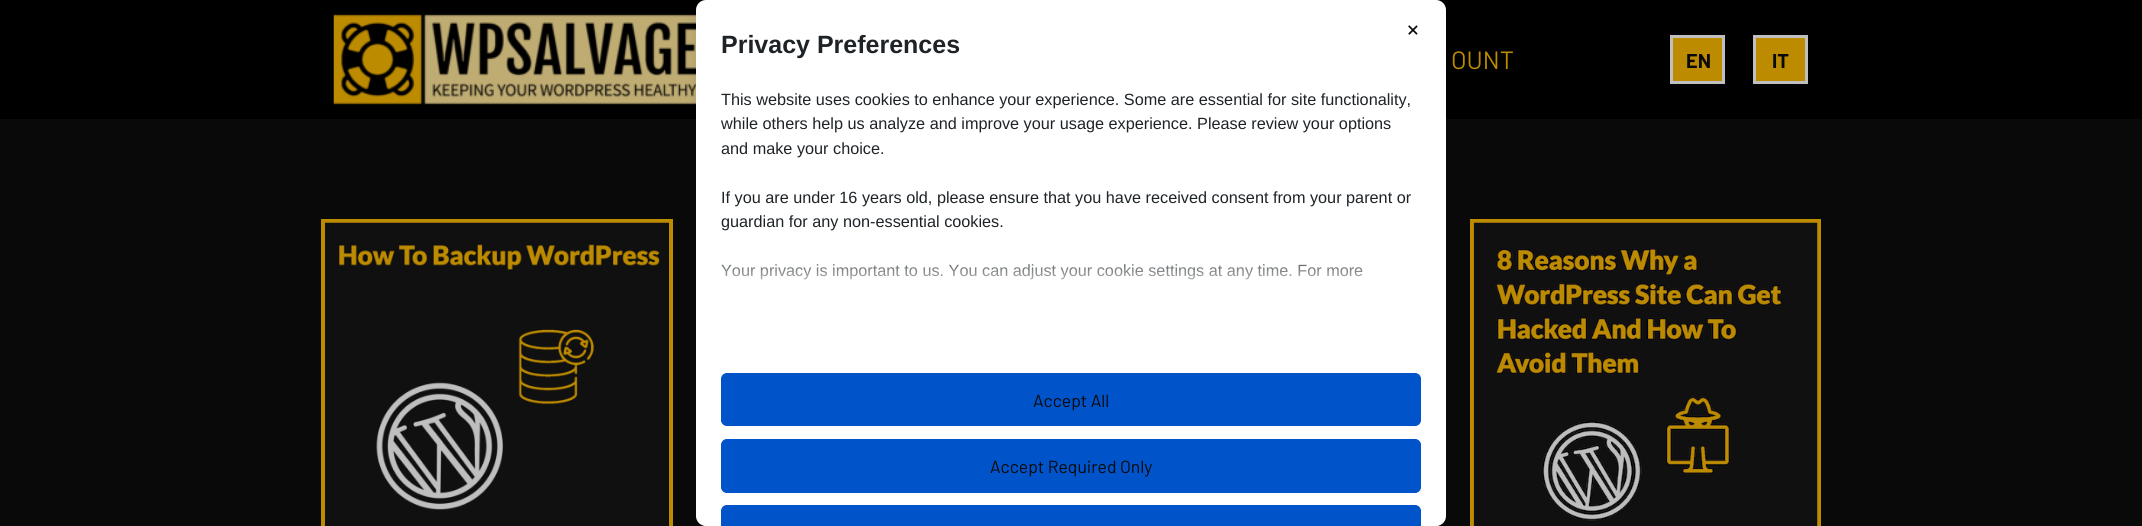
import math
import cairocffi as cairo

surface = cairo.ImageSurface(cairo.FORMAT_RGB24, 2142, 526)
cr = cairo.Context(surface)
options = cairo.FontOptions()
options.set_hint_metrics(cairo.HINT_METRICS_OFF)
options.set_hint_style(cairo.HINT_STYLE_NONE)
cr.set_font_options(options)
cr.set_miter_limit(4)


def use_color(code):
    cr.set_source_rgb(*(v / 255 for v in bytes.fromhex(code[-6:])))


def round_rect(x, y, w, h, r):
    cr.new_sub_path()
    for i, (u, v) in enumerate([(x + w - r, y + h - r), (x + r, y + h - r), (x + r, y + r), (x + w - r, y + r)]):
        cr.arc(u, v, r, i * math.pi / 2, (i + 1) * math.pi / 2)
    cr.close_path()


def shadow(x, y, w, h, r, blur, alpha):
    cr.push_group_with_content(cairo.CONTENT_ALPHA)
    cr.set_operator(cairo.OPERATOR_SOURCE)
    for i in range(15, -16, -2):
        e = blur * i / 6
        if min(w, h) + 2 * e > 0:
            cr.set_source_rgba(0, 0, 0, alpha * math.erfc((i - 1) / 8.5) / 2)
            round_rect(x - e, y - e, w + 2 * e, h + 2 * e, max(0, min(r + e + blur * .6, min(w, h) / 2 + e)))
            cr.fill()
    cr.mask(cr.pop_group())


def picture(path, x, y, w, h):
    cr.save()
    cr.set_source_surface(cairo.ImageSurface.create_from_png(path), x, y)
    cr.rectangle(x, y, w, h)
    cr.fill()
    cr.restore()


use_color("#090909")
cr.paint()
use_color("#000000")
cr.rectangle(0, 0, 2142, 119)
cr.fill()
picture("img1.png", 333, 14, 363, 91)
cr.rectangle(706, 221, 348, 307)
use_color("#bd8b00")
cr.set_line_width(4)
cr.stroke()
cr.rectangle(1090, 221, 347, 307)
cr.stroke()
use_color("#000000")
shadow(696, 0, 750, 526, 10, 6, 0.1)
use_color("#ffffff")
round_rect(696, 0, 750, 526, 10)
cr.fill()
cr.select_font_face("Barlow")
cr.set_font_size(28)
use_color("#090909")
cr.move_to(1407, 39)
cr.show_text("×")
cr.select_font_face("Liberation Sans", cairo.FONT_SLANT_NORMAL, cairo.FONT_WEIGHT_BOLD)
cr.set_font_size(25)
use_color("#1d2327")
cr.move_to(721, 53)
cr.show_text("Privacy Preferences")
cr.select_font_face("Liberation Sans")
cr.set_font_size(16.25)
cr.move_to(721, 105)
cr.show_text("This website uses cookies to enhance your experience. Some are essential for site functionality,")
cr.move_to(721, 129)
cr.show_text("while others help us analyze and improve your usage experience. Please review your options")
cr.move_to(721, 154)
cr.show_text("and make your choice.")
cr.move_to(721, 203)
cr.show_text("If you are under 16 years old, please ensure that you have received consent from your parent or")
cr.move_to(721, 227)
cr.show_text("guardian for any non-essential cookies.")
cr.move_to(721, 276)
cr.show_text("Your privacy is important to us. You can adjust your cookie settings at any time. For more")
gradient = cairo.LinearGradient(1071, 298, 1071, 248)
gradient.add_color_stop_rgba(0, 1, 1, 1, 1)
gradient.add_color_stop_rgba(1, 1, 1, 1, 0)
cr.set_source(gradient)
cr.rectangle(721, 264, 642, 16)
cr.fill()
use_color("#0053c8")
round_rect(721.5, 373.5, 699, 52, 5.5)
cr.fill_preserve()
cr.set_line_width(1)
cr.stroke()
cr.select_font_face("Barlow")
cr.set_font_size(17.5)
use_color("#090909")
cr.move_to(1033, 407)
cr.show_text("Accept All")
use_color("#0053c8")
round_rect(721.5, 439.5, 699, 53, 5.5)
cr.fill_preserve()
cr.stroke()
use_color("#090909")
cr.move_to(990, 473)
cr.show_text("Accept Required Only")
use_color("#0053c8")
round_rect(721.5, 505.5, 699, 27, 5.5)
cr.fill_preserve()
cr.stroke()
cr.set_font_size(25)
use_color("#bd8b00")
cr.move_to(1451, 69)
cr.show_text("OUNT")
cr.rectangle(1671.5, 36.5, 52, 46)
cr.fill_preserve()
use_color("#bfbfbf")
cr.set_line_width(3)
cr.stroke()
cr.select_font_face("Barlow", cairo.FONT_SLANT_NORMAL, cairo.FONT_WEIGHT_BOLD)
cr.set_font_size(20)
use_color("#090909")
cr.move_to(1686, 68)
cr.show_text("EN")
use_color("#bd8b00")
cr.rectangle(1754.5, 36.5, 52, 46)
cr.fill_preserve()
use_color("#bfbfbf")
cr.stroke()
use_color("#090909")
cr.move_to(1772, 68)
cr.show_text("IT")
cr.rectangle(323, 221, 348, 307)
use_color("#bd8b00")
cr.set_line_width(4)
cr.stroke()
picture("img2.png", 325, 222, 344, 304)
cr.rectangle(1472, 221, 347, 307)
cr.stroke()
picture("img3.png", 1473, 222, 345, 304)
surface.write_to_png("result.png")
